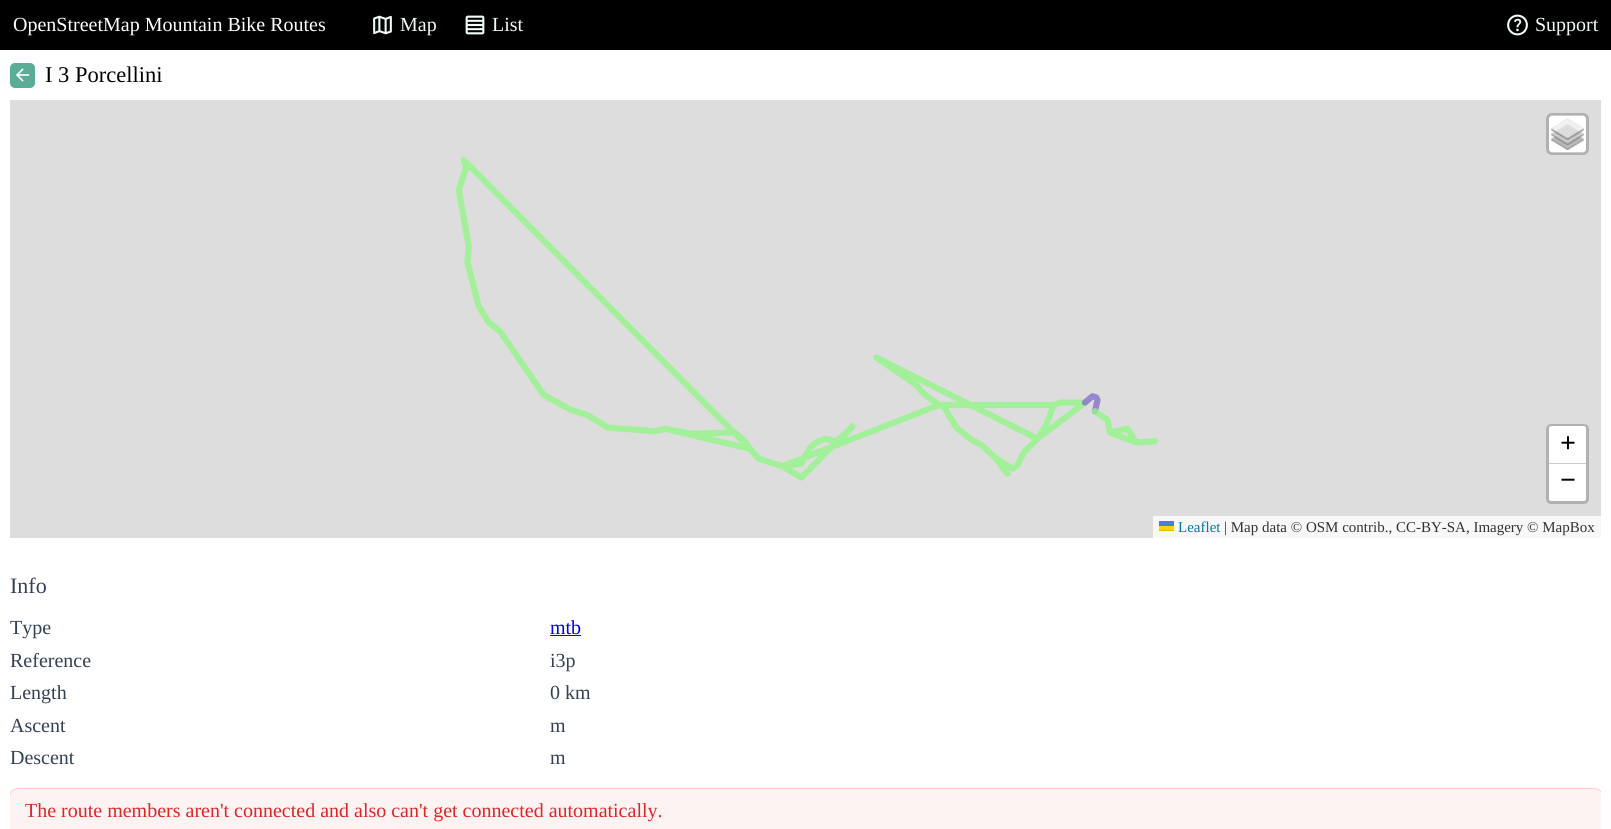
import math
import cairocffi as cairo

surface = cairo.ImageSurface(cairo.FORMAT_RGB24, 1611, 829)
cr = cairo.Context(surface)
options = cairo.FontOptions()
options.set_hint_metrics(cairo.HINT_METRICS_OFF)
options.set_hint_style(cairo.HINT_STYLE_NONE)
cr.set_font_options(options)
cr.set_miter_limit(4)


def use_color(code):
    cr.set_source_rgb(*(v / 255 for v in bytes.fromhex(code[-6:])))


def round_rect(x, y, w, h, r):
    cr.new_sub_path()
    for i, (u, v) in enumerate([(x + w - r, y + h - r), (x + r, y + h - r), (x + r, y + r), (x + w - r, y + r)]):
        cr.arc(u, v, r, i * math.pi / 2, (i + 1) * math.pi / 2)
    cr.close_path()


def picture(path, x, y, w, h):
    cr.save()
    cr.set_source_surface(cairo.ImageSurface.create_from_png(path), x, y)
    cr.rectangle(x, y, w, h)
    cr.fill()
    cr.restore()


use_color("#ffffff")
cr.paint()
use_color("#000000")
cr.rectangle(0, 0, 1611, 50)
cr.fill()
cr.select_font_face("Liberation Serif")
cr.set_font_size(20)
use_color("#ffffff")
cr.move_to(13, 31)
cr.show_text("OpenStreetMap Mountain Bike Routes")
picture("img1.png", 373, 15, 19, 20)
use_color("#effcf8")
cr.move_to(400, 31)
cr.show_text("Map")
picture("img2.png", 465, 15, 20, 20)
cr.move_to(492, 31)
cr.show_text("List")
picture("img3.png", 1507, 14, 21, 22)
cr.move_to(1535, 31)
cr.show_text("Support")
use_color("#5aad97")
round_rect(10, 63, 25, 25, 5)
cr.fill()
picture("img4.png", 16, 68, 14, 14)
cr.set_font_size(22.5)
use_color("#000000")
cr.move_to(45, 82)
cr.show_text("I 3 Porcellini")
use_color("#dddddd")
cr.rectangle(10, 100, 1591, 438)
cr.fill()
picture("img5.png", 455, 157, 704, 324)
use_color("#ffffff")
round_rect(1549, 115, 37, 38, 4)
cr.fill()
round_rect(1547.5, 114.5, 40, 39, 4.5)
cr.set_source_rgba(0, 0, 0, 0.2)
cr.set_line_width(3)
cr.stroke()
picture("img6.png", 1551, 118, 33, 32)
round_rect(1547.5, 425.5, 40, 77, 3.5)
use_color("#b1b1b1")
cr.stroke()
use_color("#ffffff")
cr.new_path()
cr.move_to(1551.5, 426)
cr.line_to(1583.5, 426)
cr.curve_to(1585, 426, 1586, 427, 1586, 428.5)
cr.line_to(1586, 464)
cr.line_to(1549, 464)
cr.line_to(1549, 428.5)
cr.curve_to(1549, 427, 1550, 426, 1551.5, 426)
cr.close_path()
cr.fill()
use_color("#cccccc")
cr.rectangle(1549, 463, 37, 1)
cr.fill()
cr.select_font_face("Liberation Serif", cairo.FONT_SLANT_NORMAL, cairo.FONT_WEIGHT_BOLD)
cr.set_font_size(28)
use_color("#000000")
cr.move_to(1560, 452)
cr.show_text("+")
use_color("#ffffff")
cr.new_path()
cr.move_to(1549, 464)
cr.line_to(1586, 464)
cr.line_to(1586, 498.5)
cr.curve_to(1586, 500, 1585, 501, 1583.5, 501)
cr.line_to(1551.5, 501)
cr.curve_to(1550, 501, 1549, 500, 1549, 498.5)
cr.close_path()
cr.fill()
use_color("#000000")
cr.move_to(1560, 489)
cr.show_text("−")
use_color("#f8f8f8")
cr.rectangle(1153, 516, 448, 22)
cr.fill()
cr.select_font_face("Liberation Serif")
cr.set_font_size(15)
use_color("#0078a8")
cr.move_to(1178, 532)
cr.show_text("Leaflet")
use_color("#4c7be1")
cr.rectangle(1159, 521, 15, 5)
cr.fill()
use_color("#ffd500")
cr.rectangle(1159, 526, 15, 4)
cr.fill()
use_color("#e0bc00")
cr.rectangle(1159, 530, 15, 1)
cr.fill()
use_color("#333333")
cr.move_to(1224, 532)
cr.show_text("| Map data © OSM contrib., CC-BY-SA, Imagery © MapBox")
cr.set_font_size(22)
use_color("#334155")
cr.move_to(10, 593)
cr.show_text("Info")
cr.set_font_size(20)
cr.move_to(10, 634)
cr.show_text("Type")
use_color("#0000ee")
cr.move_to(550, 634)
cr.show_text("mtb")
cr.rectangle(550, 635, 31, 1)
cr.fill()
use_color("#334155")
cr.move_to(10, 667)
cr.show_text("Reference")
cr.move_to(550, 667)
cr.show_text("i3p")
cr.move_to(10, 699)
cr.show_text("Length")
cr.move_to(550, 699)
cr.show_text("0 km")
cr.move_to(10, 732)
cr.show_text("Ascent")
cr.move_to(550, 732)
cr.show_text("m")
cr.move_to(10, 764)
cr.show_text("Descent")
cr.move_to(550, 764)
cr.show_text("m")
use_color("#fef3f3")
round_rect(10, 789, 1591, 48, 8)
cr.fill()
cr.save()
cr.rectangle(10, 563, 1591, 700)
cr.clip()
round_rect(9.5, 788.5, 1593, 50, 8.5)
use_color("#fecaca")
cr.set_line_width(1)
cr.stroke()
cr.restore()
use_color("#dc2626")
cr.move_to(25, 817)
cr.show_text("The route members aren't connected and also can't get connected automatically.")
surface.write_to_png("result.png")
